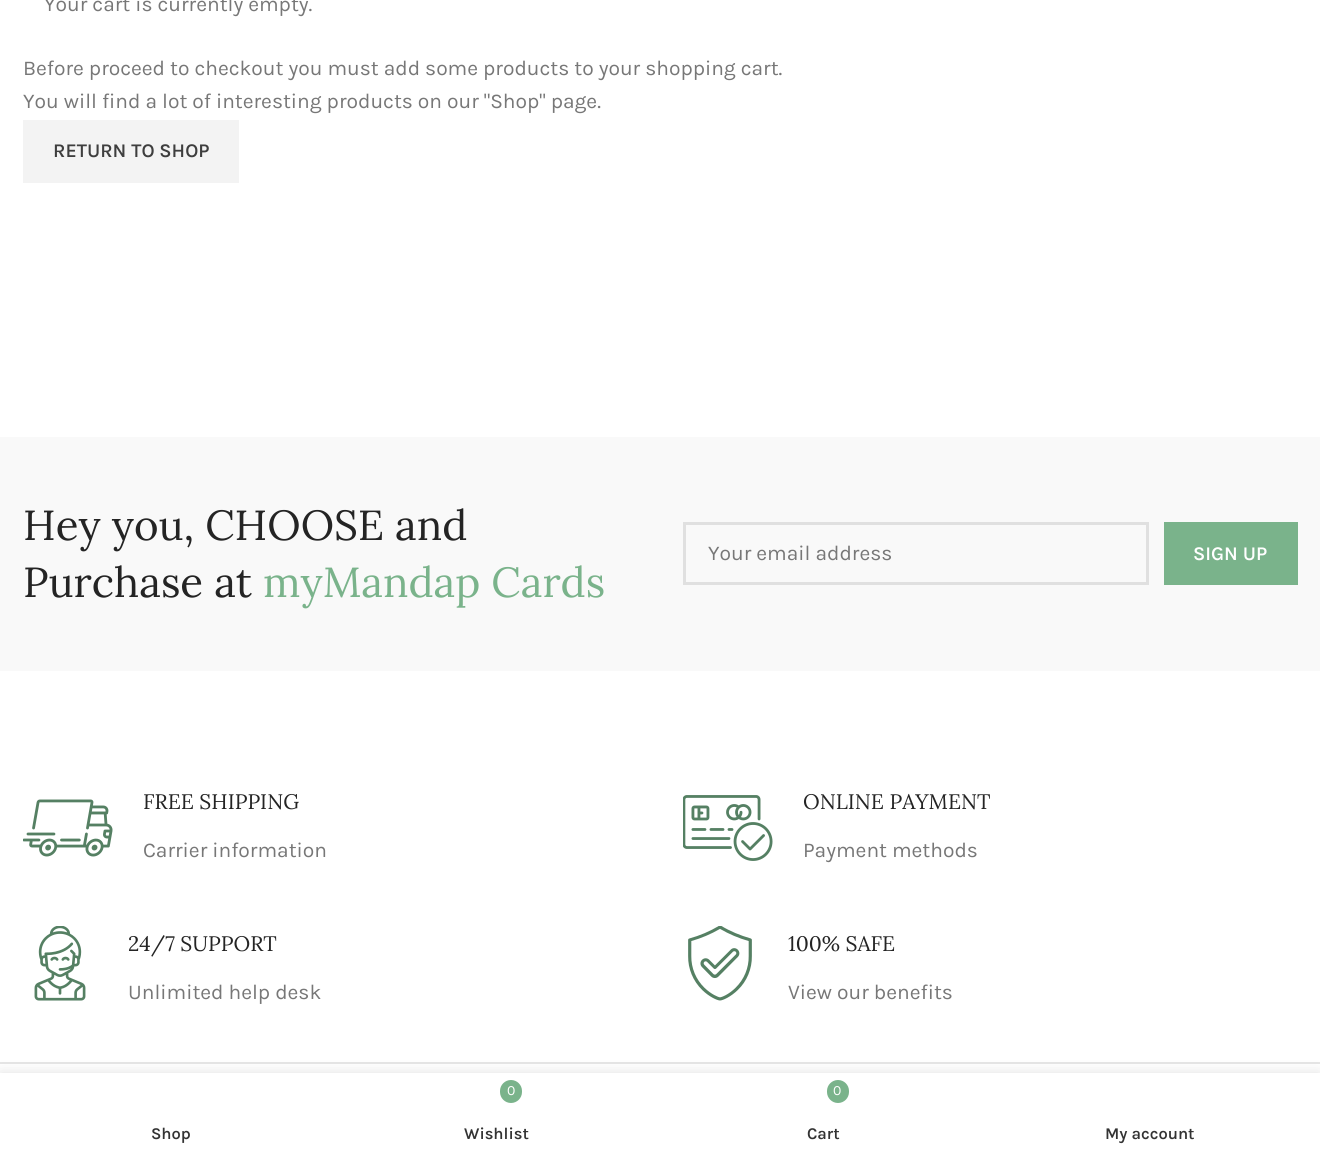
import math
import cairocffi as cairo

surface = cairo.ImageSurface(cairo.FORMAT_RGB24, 1320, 1155)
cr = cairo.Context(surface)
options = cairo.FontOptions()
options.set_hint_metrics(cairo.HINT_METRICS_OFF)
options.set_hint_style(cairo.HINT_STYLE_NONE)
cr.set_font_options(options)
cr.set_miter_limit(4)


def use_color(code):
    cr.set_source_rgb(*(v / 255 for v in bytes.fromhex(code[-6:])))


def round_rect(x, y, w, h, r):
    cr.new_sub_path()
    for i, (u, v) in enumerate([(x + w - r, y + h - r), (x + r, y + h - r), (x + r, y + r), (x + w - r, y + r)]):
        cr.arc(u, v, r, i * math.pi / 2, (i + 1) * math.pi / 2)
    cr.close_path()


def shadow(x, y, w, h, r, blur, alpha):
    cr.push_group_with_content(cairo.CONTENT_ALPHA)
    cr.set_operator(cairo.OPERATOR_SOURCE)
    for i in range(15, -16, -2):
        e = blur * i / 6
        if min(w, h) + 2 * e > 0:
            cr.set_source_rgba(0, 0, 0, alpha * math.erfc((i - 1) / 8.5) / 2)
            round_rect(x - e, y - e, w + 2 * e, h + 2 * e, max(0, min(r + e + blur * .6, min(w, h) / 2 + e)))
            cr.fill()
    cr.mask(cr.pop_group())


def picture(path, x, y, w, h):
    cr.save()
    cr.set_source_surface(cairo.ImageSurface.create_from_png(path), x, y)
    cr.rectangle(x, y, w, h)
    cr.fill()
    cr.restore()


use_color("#ffffff")
cr.paint()
cr.select_font_face("Karla")
cr.set_font_size(21)
use_color("#777777")
cr.move_to(44, 11)
cr.show_text("Your cart is currently empty.")
cr.move_to(23, 75)
cr.show_text("Before proceed to checkout you must add some products to your shopping cart.")
cr.move_to(23, 108)
cr.show_text("You will find a lot of interesting products on our \"Shop\" page.")
use_color("#f3f3f3")
cr.rectangle(23, 120, 216, 63)
cr.fill()
cr.select_font_face("Karla SemiBold")
cr.set_font_size(19.5)
use_color("#3e3e3e")
cr.move_to(53, 157)
cr.show_text("RETURN TO SHOP")
use_color("#f9f9f9")
cr.rectangle(0, 437, 1320, 234)
cr.fill()
cr.select_font_face("Lora")
cr.set_font_size(42)
use_color("#242424")
cr.move_to(23, 540)
cr.show_text("Hey you, CHOOSE and")
cr.move_to(23, 597)
cr.show_text("Purchase at")
use_color("#7ab38b")
cr.move_to(263, 597)
cr.show_text("myMandap Cards")
cr.rectangle(684.5, 523.5, 463, 60)
use_color("#e0e0e0")
cr.set_line_width(3)
cr.stroke()
cr.select_font_face("Karla")
cr.set_font_size(21)
use_color("#777777")
cr.move_to(708, 560)
cr.show_text("Your email address")
use_color("#7ab38b")
cr.rectangle(1164, 522, 134, 63)
cr.fill()
cr.select_font_face("Karla SemiBold")
cr.set_font_size(19.5)
use_color("#ffffff")
cr.move_to(1193, 560)
cr.show_text("SIGN UP")
use_color("#e6e6e6")
cr.rectangle(0, 1062, 1320, 2)
cr.fill()
picture("img1.png", 23, 799, 90, 58)
cr.select_font_face("Lora")
cr.set_font_size(21)
use_color("#242424")
cr.move_to(143, 809)
cr.show_text("FREE SHIPPING")
cr.select_font_face("Karla")
use_color("#777777")
cr.move_to(143, 857)
cr.show_text("Carrier information")
picture("img2.png", 683, 795, 90, 66)
cr.select_font_face("Lora")
use_color("#242424")
cr.move_to(803, 809)
cr.show_text("ONLINE PAYMENT")
cr.select_font_face("Karla")
use_color("#777777")
cr.move_to(803, 857)
cr.show_text("Payment methods")
picture("img3.png", 34, 926, 52, 75)
cr.select_font_face("Lora")
use_color("#242424")
cr.move_to(128, 951)
cr.show_text("24/7 SUPPORT")
cr.select_font_face("Karla")
use_color("#777777")
cr.move_to(128, 999)
cr.show_text("Unlimited help desk")
picture("img4.png", 688, 926, 64, 75)
cr.select_font_face("Lora")
use_color("#242424")
cr.move_to(788, 951)
cr.show_text("100% SAFE")
cr.select_font_face("Karla")
use_color("#777777")
cr.move_to(788, 999)
cr.show_text("View our benefits")
use_color("#000000")
shadow(0, 1073, 1320, 82, 0, 7, 0.12)
use_color("#ffffff")
cr.rectangle(0, 1073, 1320, 82)
cr.fill()
cr.select_font_face("Karla SemiBold")
cr.set_font_size(16.5)
use_color("#333333")
cr.move_to(151, 1139)
cr.show_text("Shop")
use_color("#7ab38b")
round_rect(500, 1080, 22, 23, 11)
cr.fill()
cr.select_font_face("Karla")
cr.set_font_size(14)
use_color("#ffffff")
cr.move_to(507, 1095)
cr.show_text("0")
cr.select_font_face("Karla SemiBold")
cr.set_font_size(16.5)
use_color("#333333")
cr.move_to(464, 1139)
cr.show_text("Wishlist")
use_color("#7ab38b")
round_rect(827, 1080, 22, 23, 11)
cr.fill()
cr.select_font_face("Karla")
cr.set_font_size(14)
use_color("#ffffff")
cr.move_to(833, 1095)
cr.show_text("0")
cr.select_font_face("Karla SemiBold")
cr.set_font_size(16.5)
use_color("#333333")
cr.move_to(807, 1139)
cr.show_text("Cart")
cr.move_to(1105, 1139)
cr.show_text("My account")
surface.write_to_png("result.png")
